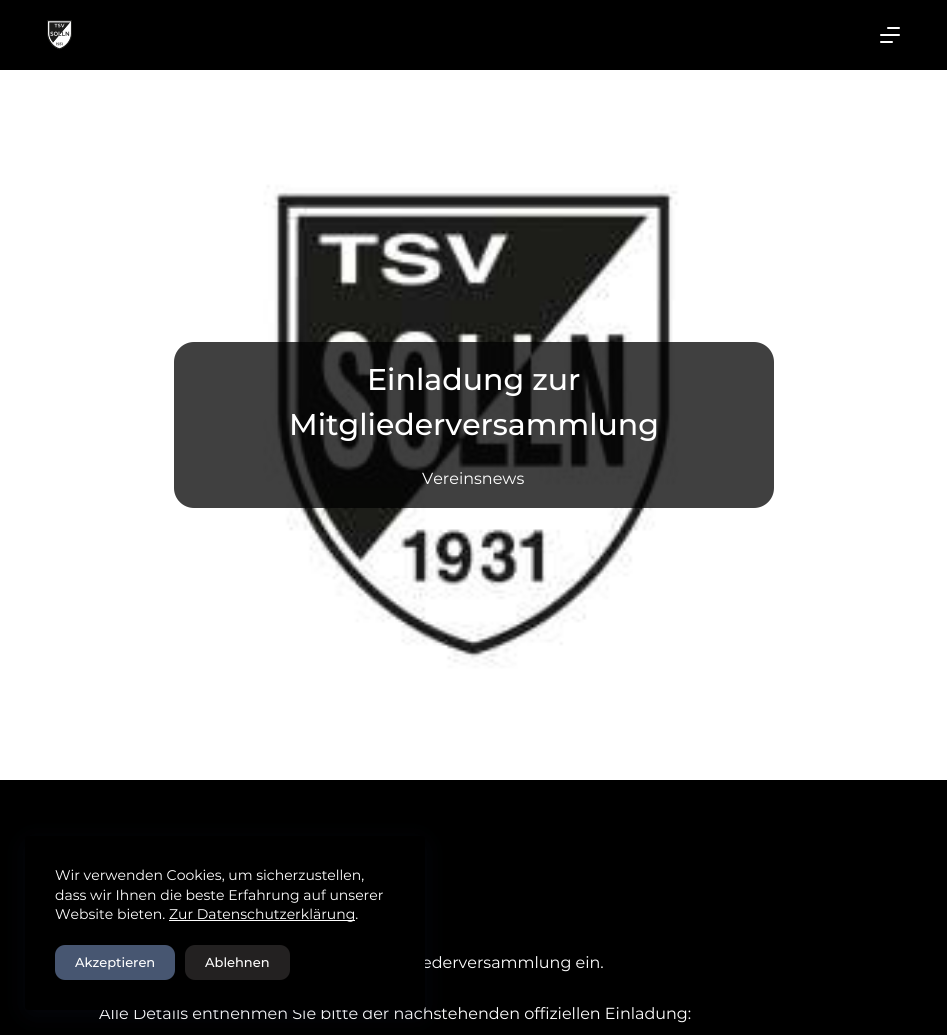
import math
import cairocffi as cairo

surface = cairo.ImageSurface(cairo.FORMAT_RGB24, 947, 1035)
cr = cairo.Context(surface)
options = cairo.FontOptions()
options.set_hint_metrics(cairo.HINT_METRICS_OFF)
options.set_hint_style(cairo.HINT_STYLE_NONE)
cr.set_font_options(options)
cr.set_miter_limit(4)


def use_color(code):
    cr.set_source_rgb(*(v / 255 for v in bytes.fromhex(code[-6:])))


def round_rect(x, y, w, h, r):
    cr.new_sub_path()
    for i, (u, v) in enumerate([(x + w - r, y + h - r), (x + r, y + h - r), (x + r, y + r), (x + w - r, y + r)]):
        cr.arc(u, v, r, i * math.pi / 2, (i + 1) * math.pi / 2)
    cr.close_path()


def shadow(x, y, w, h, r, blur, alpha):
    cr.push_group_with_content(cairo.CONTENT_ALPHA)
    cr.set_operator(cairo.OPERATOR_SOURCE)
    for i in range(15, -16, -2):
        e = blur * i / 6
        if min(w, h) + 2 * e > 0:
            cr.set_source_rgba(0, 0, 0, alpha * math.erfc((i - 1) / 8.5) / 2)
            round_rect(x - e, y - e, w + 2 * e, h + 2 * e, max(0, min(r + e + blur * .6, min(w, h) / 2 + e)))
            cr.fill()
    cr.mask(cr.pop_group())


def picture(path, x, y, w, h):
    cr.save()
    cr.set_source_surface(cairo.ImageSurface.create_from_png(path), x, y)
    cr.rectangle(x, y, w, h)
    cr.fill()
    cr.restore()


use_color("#000000")
cr.paint()
picture("img1.png", 47, 20, 25, 30)
use_color("#ffffff")
round_rect(887, 27, 13, 2, 1)
cr.fill()
round_rect(880, 34, 20, 2, 1)
cr.fill()
round_rect(880, 41, 13, 2, 1)
cr.fill()
picture("img2.png", 0, 70, 947, 710)
cr.set_source_rgba(0, 0, 0, 0.75)
round_rect(174, 342, 600, 166, 20)
cr.fill()
cr.select_font_face("Montserrat Medium")
cr.set_font_size(30)
use_color("#ffffff")
cr.move_to(367, 390)
cr.show_text("Einladung zur")
cr.move_to(289, 435)
cr.show_text("Mitgliederversammlung")
cr.select_font_face("Montserrat")
cr.set_font_size(16)
cr.move_to(422, 484)
cr.show_text("Vereinsnews")
cr.move_to(422, 968)
cr.show_text("ederversammlung ein.")
cr.move_to(99, 1019)
cr.show_text("Alle Details entnehmen Sie bitte der nachstehenden offiziellen Einladung:")
use_color("#223865")
shadow(30, 846, 390, 164, 0, 15, 0.15)
use_color("#000000")
round_rect(25, 836, 400, 174, 3)
cr.fill()
cr.set_font_size(14)
use_color("#ffffff")
cr.move_to(55, 880)
cr.show_text("Wir verwenden Cookies, um sicherzustellen,")
cr.move_to(55, 900)
cr.show_text("dass wir Ihnen die beste Erfahrung auf unserer")
cr.move_to(55, 919)
cr.show_text("Website bieten.")
cr.rectangle(169, 920, 186, 1)
cr.fill()
cr.move_to(169, 919)
cr.show_text("Zur Datenschutzerklärung.")
use_color("#475671")
round_rect(55, 945, 120, 35, 10)
cr.fill()
cr.select_font_face("Montserrat Medium")
cr.set_font_size(13)
use_color("#ffffff")
cr.move_to(75, 967)
cr.show_text("Akzeptieren")
use_color("#232121")
round_rect(185, 945, 105, 35, 10)
cr.fill()
use_color("#ffffff")
cr.move_to(205, 967)
cr.show_text("Ablehnen")
surface.write_to_png("result.png")
